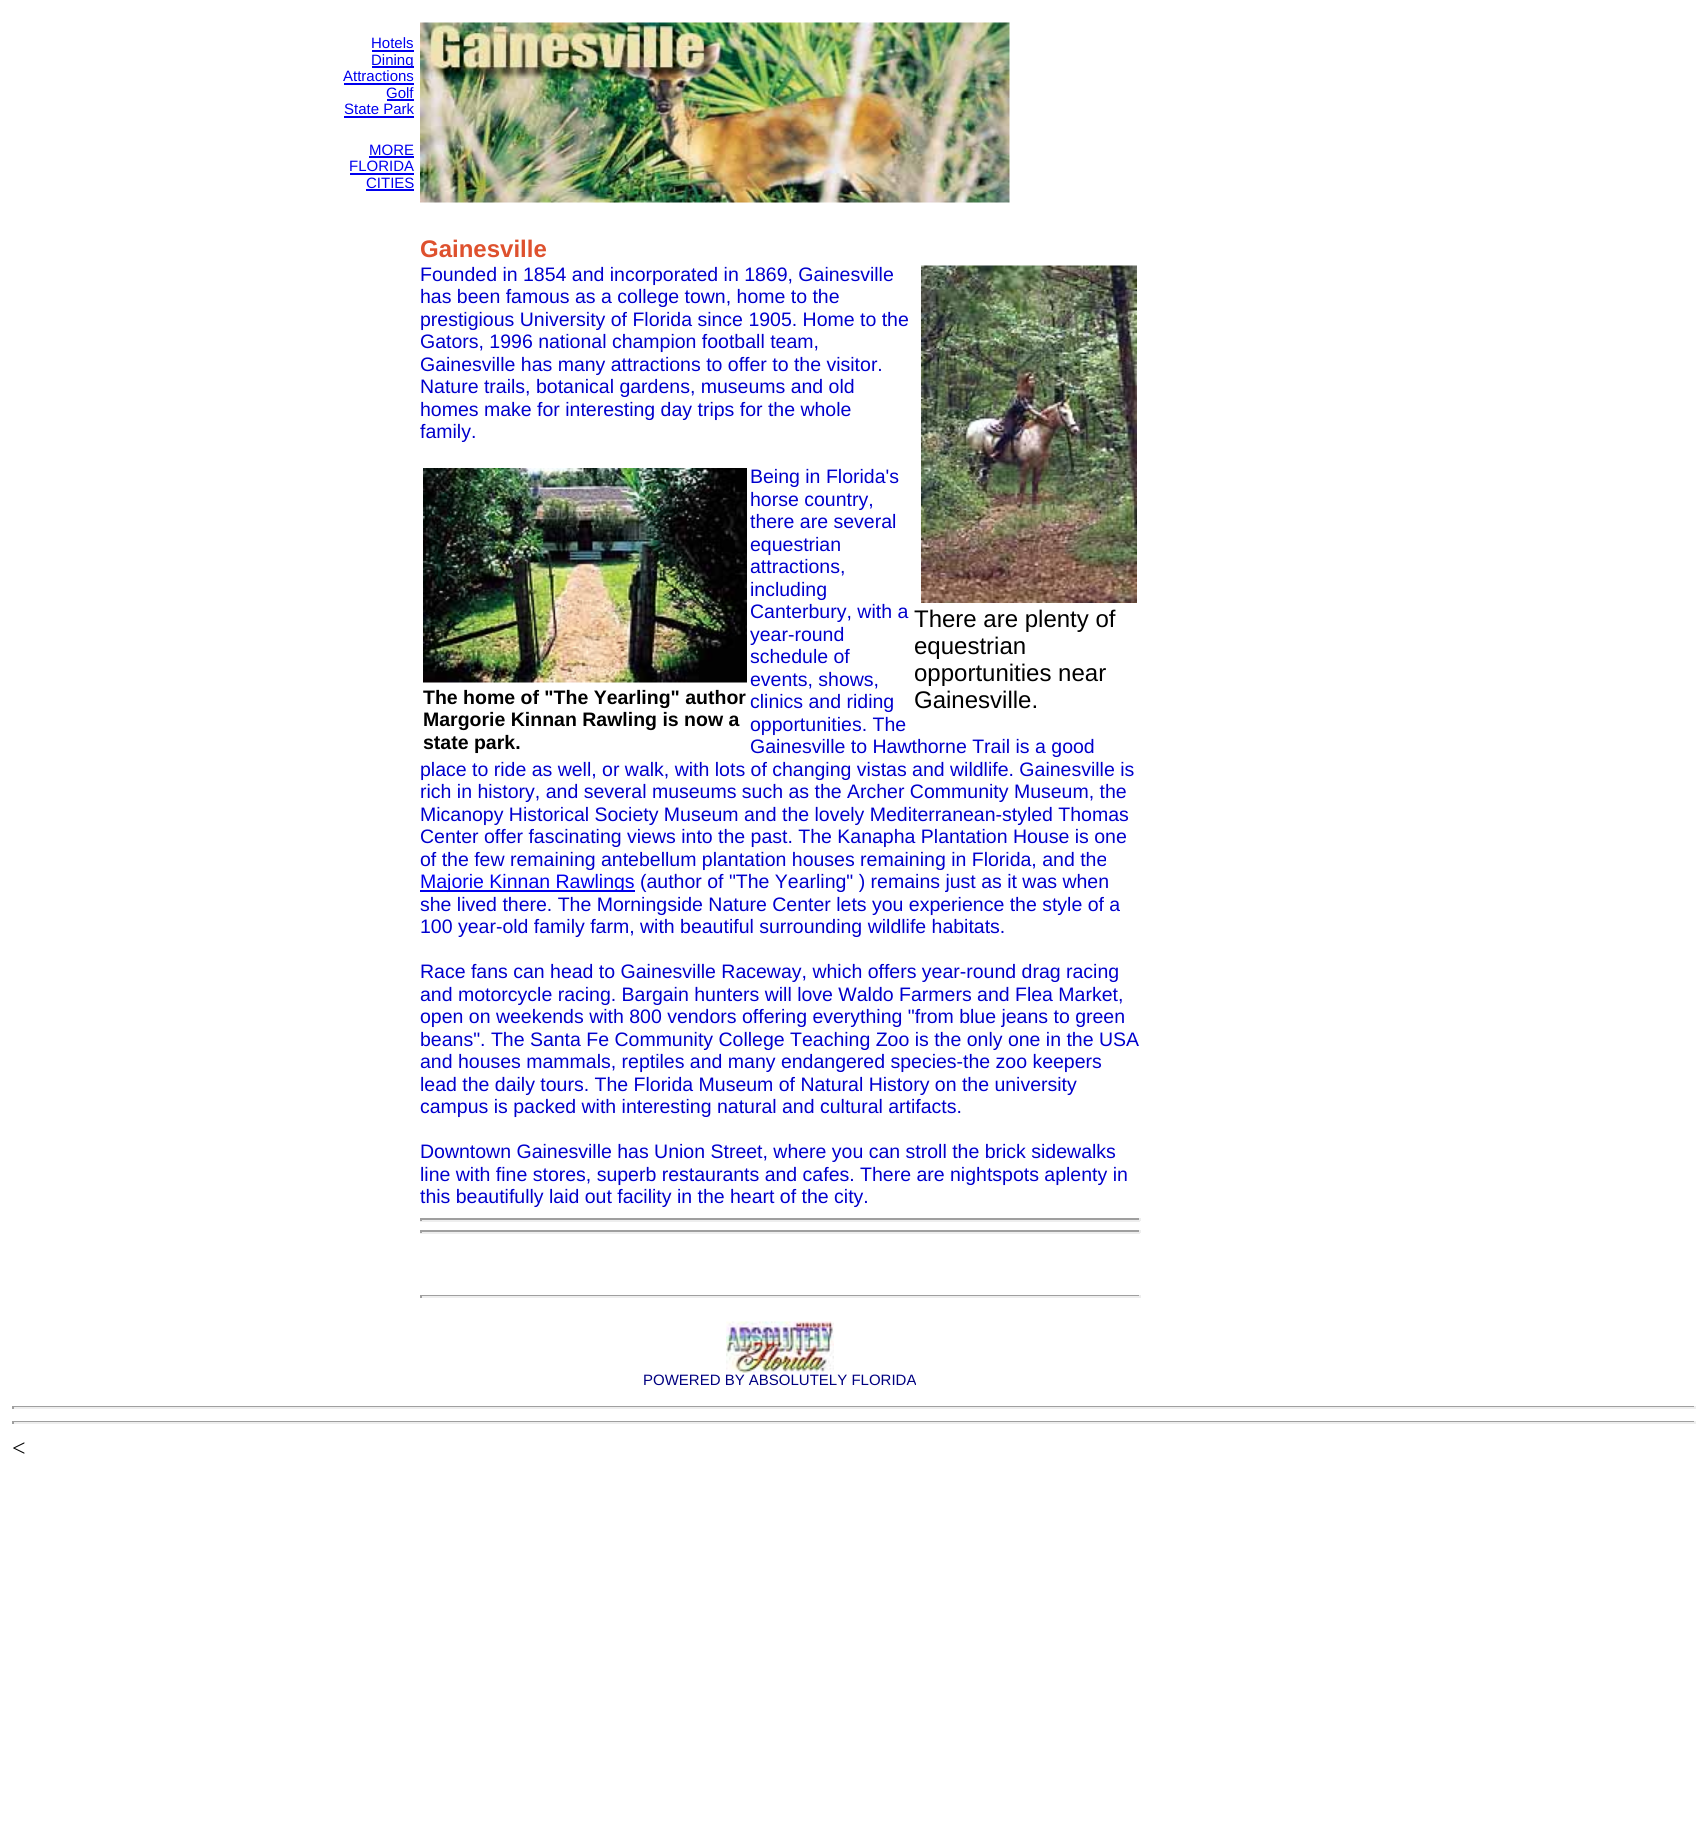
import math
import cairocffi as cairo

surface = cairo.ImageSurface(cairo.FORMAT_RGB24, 1706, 1825)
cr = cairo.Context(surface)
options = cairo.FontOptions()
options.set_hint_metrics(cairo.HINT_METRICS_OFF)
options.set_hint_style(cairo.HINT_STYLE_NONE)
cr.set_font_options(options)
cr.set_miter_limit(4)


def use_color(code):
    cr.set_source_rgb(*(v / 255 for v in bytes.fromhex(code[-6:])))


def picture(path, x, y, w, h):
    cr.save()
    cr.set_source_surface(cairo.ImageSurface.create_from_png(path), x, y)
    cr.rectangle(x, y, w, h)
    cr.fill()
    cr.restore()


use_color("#ffffff")
cr.paint()
cr.select_font_face("Liberation Sans")
cr.set_font_size(15)
use_color("#0000ee")
cr.move_to(371, 48)
cr.show_text("Hotels")
cr.rectangle(372, 50, 42, 2)
cr.fill()
cr.rectangle(372, 66, 42, 2)
cr.fill()
cr.move_to(371, 65)
cr.show_text("Dining")
cr.move_to(343, 81)
cr.show_text("Attractions")
cr.rectangle(344, 83, 70, 2)
cr.fill()
cr.move_to(386, 98)
cr.show_text("Golf")
cr.rectangle(387, 99, 27, 2)
cr.fill()
cr.move_to(344, 114)
cr.show_text("State Park")
cr.rectangle(344, 116, 70, 2)
cr.fill()
cr.move_to(369, 155)
cr.show_text("MORE")
cr.rectangle(369, 156, 45, 2)
cr.fill()
cr.move_to(349, 171)
cr.show_text("FLORIDA")
cr.rectangle(350, 173, 64, 2)
cr.fill()
cr.move_to(366, 188)
cr.show_text("CITIES")
cr.rectangle(366, 189, 48, 2)
cr.fill()
picture("img1.png", 420, 22, 590, 181)
cr.select_font_face("Liberation Sans", cairo.FONT_SLANT_NORMAL, cairo.FONT_WEIGHT_BOLD)
cr.set_font_size(24)
use_color("#de512e")
cr.move_to(420, 257)
cr.show_text("Gainesville")
cr.select_font_face("Liberation Sans")
cr.set_font_size(19.5)
use_color("#0000cd")
cr.move_to(420, 281)
cr.show_text("Founded in 1854 and incorporated in 1869, Gainesville")
cr.move_to(420, 303)
cr.show_text("has been famous as a college town, home to the")
cr.move_to(420, 326)
cr.show_text("prestigious University of Florida since 1905. Home to the")
cr.move_to(420, 348)
cr.show_text("Gators, 1996 national champion football team,")
cr.move_to(420, 371)
cr.show_text("Gainesville has many attractions to offer to the visitor.")
cr.move_to(420, 393)
cr.show_text("Nature trails, botanical gardens, museums and old")
cr.move_to(420, 416)
cr.show_text("homes make for interesting day trips for the whole")
cr.move_to(420, 438)
cr.show_text("family.")
cr.move_to(750, 483)
cr.show_text("Being in Florida's")
cr.move_to(750, 506)
cr.show_text("horse country,")
cr.move_to(750, 528)
cr.show_text("there are several")
cr.move_to(750, 551)
cr.show_text("equestrian")
cr.move_to(750, 573)
cr.show_text("attractions,")
cr.move_to(750, 596)
cr.show_text("including")
cr.move_to(750, 618)
cr.show_text("Canterbury, with a")
cr.move_to(750, 641)
cr.show_text("year-round")
cr.move_to(750, 663)
cr.show_text("schedule of")
cr.move_to(750, 686)
cr.show_text("events, shows,")
cr.move_to(750, 708)
cr.show_text("clinics and riding")
cr.move_to(750, 731)
cr.show_text("opportunities. The")
cr.move_to(750, 753)
cr.show_text("Gainesville to Hawthorne Trail is a good")
cr.move_to(420, 776)
cr.show_text("place to ride as well, or walk, with lots of changing vistas and wildlife. Gainesville is")
cr.move_to(420, 798)
cr.show_text("rich in history, and several museums such as the Archer Community Museum, the")
cr.move_to(420, 821)
cr.show_text("Micanopy Historical Society Museum and the lovely Mediterranean-styled Thomas")
cr.move_to(420, 843)
cr.show_text("Center offer fascinating views into the past. The Kanapha Plantation House is one")
cr.move_to(420, 866)
cr.show_text("of the few remaining antebellum plantation houses remaining in Florida, and the")
use_color("#0000ee")
cr.rectangle(420, 890, 215, 2)
cr.fill()
cr.move_to(420, 888)
cr.show_text("Majorie Kinnan Rawlings")
use_color("#0000cd")
cr.move_to(640, 888)
cr.show_text("(author of \"The Yearling\" ) remains just as it was when")
cr.move_to(420, 911)
cr.show_text("she lived there. The Morningside Nature Center lets you experience the style of a")
cr.move_to(420, 933)
cr.show_text("100 year-old family farm, with beautiful surrounding wildlife habitats.")
cr.move_to(420, 978)
cr.show_text("Race fans can head to Gainesville Raceway, which offers year-round drag racing")
cr.move_to(420, 1001)
cr.show_text("and motorcycle racing. Bargain hunters will love Waldo Farmers and Flea Market,")
cr.move_to(420, 1023)
cr.show_text("open on weekends with 800 vendors offering everything \"from blue jeans to green")
cr.move_to(420, 1046)
cr.show_text("beans\". The Santa Fe Community College Teaching Zoo is the only one in the USA")
cr.move_to(420, 1068)
cr.show_text("and houses mammals, reptiles and many endangered species-the zoo keepers")
cr.move_to(420, 1091)
cr.show_text("lead the daily tours. The Florida Museum of Natural History on the university")
cr.move_to(420, 1113)
cr.show_text("campus is packed with interesting natural and cultural artifacts.")
cr.move_to(420, 1158)
cr.show_text("Downtown Gainesville has Union Street, where you can stroll the brick sidewalks")
cr.move_to(420, 1181)
cr.show_text("line with fine stores, superb restaurants and cafes. There are nightspots aplenty in")
cr.move_to(420, 1203)
cr.show_text("this beautifully laid out facility in the heart of the city.")
use_color("#9f9f9f")
cr.rectangle(420, 1218, 720, 2)
cr.fill()
use_color("#eeeeee")
cr.rectangle(1139, 1218, 2, 3)
cr.fill()
cr.rectangle(420, 1220, 720, 2)
cr.fill()
use_color("#9f9f9f")
cr.rectangle(420, 1218, 2, 3)
cr.fill()
cr.rectangle(420, 1230, 720, 2)
cr.fill()
use_color("#eeeeee")
cr.rectangle(1139, 1230, 2, 3)
cr.fill()
cr.rectangle(420, 1232, 720, 2)
cr.fill()
use_color("#9f9f9f")
cr.rectangle(420, 1230, 2, 3)
cr.fill()
picture("img2.png", 921, 265, 216, 338)
cr.set_font_size(24)
use_color("#000000")
cr.move_to(914, 627)
cr.show_text("There are plenty of")
cr.move_to(914, 654)
cr.show_text("equestrian")
cr.move_to(914, 681)
cr.show_text("opportunities near")
cr.move_to(914, 708)
cr.show_text("Gainesville.")
picture("img3.png", 423, 468, 324, 215)
cr.select_font_face("Liberation Sans", cairo.FONT_SLANT_NORMAL, cairo.FONT_WEIGHT_BOLD)
cr.set_font_size(19.5)
cr.move_to(423, 704)
cr.show_text("The home of \"The Yearling\" author")
cr.move_to(423, 726)
cr.show_text("Margorie Kinnan Rawling is now a")
cr.move_to(423, 749)
cr.show_text("state park.")
use_color("#9f9f9f")
cr.rectangle(420, 1295, 720, 1)
cr.fill()
use_color("#eeeeee")
cr.rectangle(1139, 1295, 2, 3)
cr.fill()
cr.rectangle(420, 1296, 720, 2)
cr.fill()
use_color("#9f9f9f")
cr.rectangle(420, 1295, 2, 3)
cr.fill()
picture("img4.png", 726, 1321, 108, 52)
cr.select_font_face("Liberation Sans")
cr.set_font_size(15)
use_color("#000080")
cr.move_to(643, 1385)
cr.show_text("POWERED BY ABSOLUTELY FLORIDA")
use_color("#9f9f9f")
cr.rectangle(12, 1406, 1683, 1)
cr.fill()
use_color("#eeeeee")
cr.rectangle(1694, 1406, 2, 3)
cr.fill()
cr.rectangle(12, 1407, 1683, 2)
cr.fill()
use_color("#9f9f9f")
cr.rectangle(12, 1406, 2, 3)
cr.fill()
cr.rectangle(12, 1421, 1683, 1)
cr.fill()
use_color("#eeeeee")
cr.rectangle(1694, 1421, 2, 3)
cr.fill()
cr.rectangle(12, 1422, 1683, 2)
cr.fill()
use_color("#9f9f9f")
cr.rectangle(12, 1421, 2, 3)
cr.fill()
cr.select_font_face("Liberation Serif")
cr.set_font_size(24)
use_color("#000000")
cr.move_to(12, 1456)
cr.show_text("<")
surface.write_to_png("result.png")
